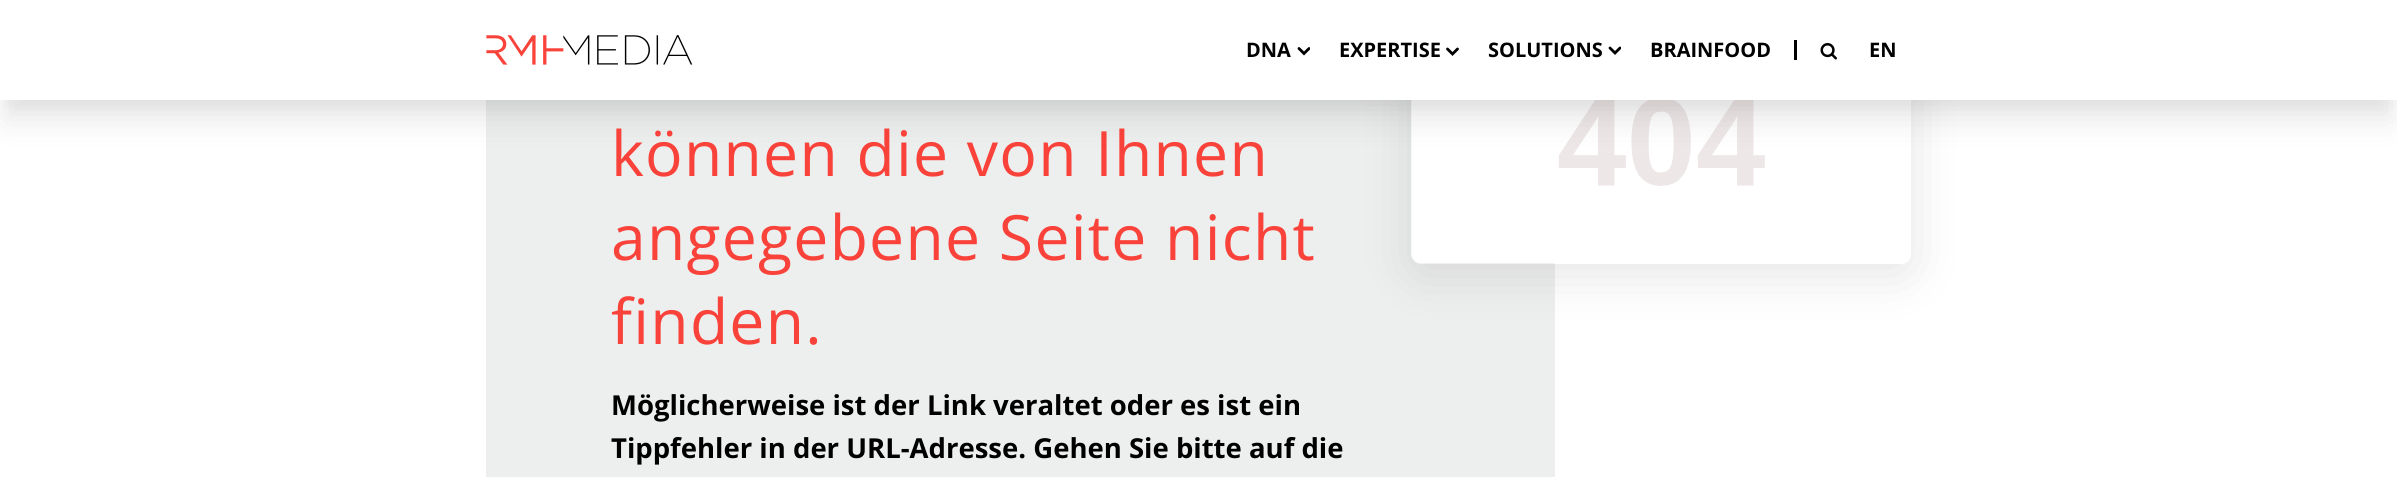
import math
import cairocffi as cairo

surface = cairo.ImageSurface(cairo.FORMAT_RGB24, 2397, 477)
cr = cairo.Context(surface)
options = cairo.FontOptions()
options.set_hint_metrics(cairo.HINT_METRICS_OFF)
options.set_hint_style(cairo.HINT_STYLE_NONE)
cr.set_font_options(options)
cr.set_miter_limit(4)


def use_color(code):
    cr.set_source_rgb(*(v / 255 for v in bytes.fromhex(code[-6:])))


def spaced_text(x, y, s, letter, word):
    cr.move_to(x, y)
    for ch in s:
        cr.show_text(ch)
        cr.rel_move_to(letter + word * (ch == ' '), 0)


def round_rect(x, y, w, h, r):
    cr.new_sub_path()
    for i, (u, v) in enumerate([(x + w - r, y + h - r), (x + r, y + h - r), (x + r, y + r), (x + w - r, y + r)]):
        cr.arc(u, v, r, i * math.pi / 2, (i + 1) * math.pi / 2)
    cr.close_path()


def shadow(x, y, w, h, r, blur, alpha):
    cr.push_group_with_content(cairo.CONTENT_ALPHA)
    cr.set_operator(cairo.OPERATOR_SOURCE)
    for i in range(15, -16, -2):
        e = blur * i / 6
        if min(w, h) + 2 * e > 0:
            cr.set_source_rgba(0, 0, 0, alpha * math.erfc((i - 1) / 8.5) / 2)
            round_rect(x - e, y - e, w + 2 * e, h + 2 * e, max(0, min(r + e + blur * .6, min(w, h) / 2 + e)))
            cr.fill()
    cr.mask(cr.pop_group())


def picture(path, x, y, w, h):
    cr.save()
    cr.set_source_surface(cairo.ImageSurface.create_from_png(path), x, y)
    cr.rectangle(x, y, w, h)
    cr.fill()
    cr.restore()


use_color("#ffffff")
cr.paint()
use_color("#edeeee")
cr.rectangle(486, 100, 1069, 377)
cr.fill()
cr.save()
cr.set_fill_rule(cairo.FILL_RULE_EVEN_ODD)
cr.new_path()
cr.move_to(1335, 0)
cr.line_to(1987, 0)
cr.line_to(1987, 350)
cr.line_to(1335, 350)
cr.close_path()
cr.move_to(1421, -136)
cr.line_to(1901, -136)
cr.curve_to(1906.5, -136, 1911, -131.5, 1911, -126)
cr.line_to(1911, 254)
cr.curve_to(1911, 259.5, 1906.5, 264, 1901, 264)
cr.line_to(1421, 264)
cr.curve_to(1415.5, 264, 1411, 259.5, 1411, 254)
cr.line_to(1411, -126)
cr.curve_to(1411, -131.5, 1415.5, -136, 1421, -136)
cr.close_path()
cr.clip()
use_color("#595454")
shadow(1411, -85, 500, 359, 10, 25, 0.16)
cr.restore()
picture("img3.png", 1411, 100, 354, 164)
use_color("#000000")
shadow(6, 19, 2385, 87, 0, 6, 0.04)
shadow(6, 31, 2385, 88, 0, 15.5, 0.1)
use_color("#ffffff")
cr.rectangle(0, 0, 2397, 100)
cr.fill()
picture("img1.png", 486, 35, 207, 30)
cr.select_font_face("Open Sans", cairo.FONT_SLANT_NORMAL, cairo.FONT_WEIGHT_BOLD)
cr.set_font_size(20)
use_color("#000000")
cr.move_to(1246, 57)
cr.show_text("DNA")
cr.save()
cr.new_path()
cr.move_to(1310, 46.5)
cr.line_to(1310, 56)
cr.line_to(1297.5, 56)
cr.line_to(1297.5, 46.5)
cr.close_path()
cr.clip()
cr.new_path()
cr.move_to(1299, 48.5)
cr.line_to(1304, 53.5)
cr.line_to(1309, 48.5)
cr.set_line_width(2.8)
cr.set_line_cap(cairo.LINE_CAP_ROUND)
cr.stroke()
cr.restore()
cr.move_to(1339, 57)
cr.show_text("EXPERTISE")
cr.new_path()
cr.move_to(1447.5, 49)
cr.line_to(1452.5, 54)
cr.line_to(1457.5, 49)
cr.set_line_width(2.8)
cr.set_line_cap(cairo.LINE_CAP_ROUND)
cr.stroke()
cr.move_to(1488, 57)
cr.show_text("SOLUTIONS")
cr.save()
cr.new_path()
cr.move_to(1621, 45.5)
cr.line_to(1621, 56.5)
cr.line_to(1608.5, 56.5)
cr.line_to(1608.5, 45.5)
cr.close_path()
cr.clip()
cr.new_path()
cr.move_to(1610, 48)
cr.line_to(1615, 53)
cr.line_to(1620, 48)
cr.stroke()
cr.restore()
cr.move_to(1650, 57)
cr.show_text("BRAINFOOD")
cr.rectangle(1794, 40, 3, 20)
cr.fill()
picture("img2.png", 1820, 43, 17, 17)
cr.move_to(1869, 57)
cr.show_text("EN")
cr.select_font_face("Open Sans")
cr.set_font_size(62.5)
use_color("#f9423a")
spaced_text(611, 176, "können die von Ihnen", 1.25, 0)
spaced_text(611, 260, "angegebene Seite nicht", 1.25, 0)
spaced_text(611, 344, "finden.", 1.25, 0)
cr.select_font_face("Open Sans", cairo.FONT_SLANT_NORMAL, cairo.FONT_WEIGHT_BOLD)
cr.set_font_size(27.5)
use_color("#000000")
cr.move_to(611, 415)
cr.show_text("Möglicherweise ist der Link veraltet oder es ist ein")
cr.move_to(611, 458)
cr.show_text("Tippfehler in der URL-Adresse. Gehen Sie bitte auf die")
surface.write_to_png("result.png")
